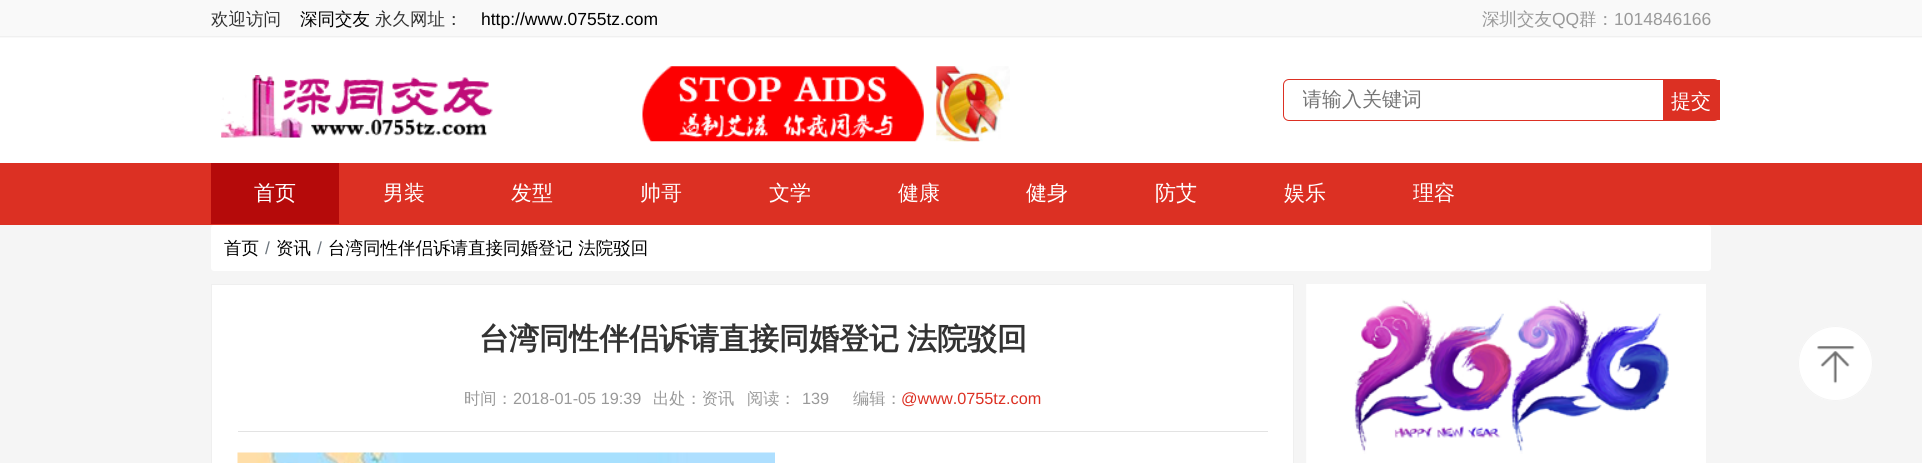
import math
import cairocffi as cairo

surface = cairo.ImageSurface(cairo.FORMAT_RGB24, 1922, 463)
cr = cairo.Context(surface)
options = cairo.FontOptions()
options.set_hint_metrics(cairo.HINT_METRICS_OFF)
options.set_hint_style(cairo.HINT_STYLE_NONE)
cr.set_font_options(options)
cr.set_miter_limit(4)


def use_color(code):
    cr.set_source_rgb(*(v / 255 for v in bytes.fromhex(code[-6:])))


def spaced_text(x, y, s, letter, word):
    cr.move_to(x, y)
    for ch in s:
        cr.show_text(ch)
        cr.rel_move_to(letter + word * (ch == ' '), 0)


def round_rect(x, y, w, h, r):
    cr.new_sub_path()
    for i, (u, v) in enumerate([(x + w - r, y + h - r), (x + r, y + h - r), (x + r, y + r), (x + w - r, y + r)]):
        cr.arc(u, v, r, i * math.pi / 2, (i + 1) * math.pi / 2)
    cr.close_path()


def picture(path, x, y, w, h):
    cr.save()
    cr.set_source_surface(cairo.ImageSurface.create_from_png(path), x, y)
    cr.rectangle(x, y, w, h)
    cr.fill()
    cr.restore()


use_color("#f5f5f5")
cr.paint()
use_color("#f9f9f9")
cr.rectangle(0, 0, 1922, 38)
cr.fill()
use_color("#f0f0f0")
cr.rectangle(0, 36, 1922, 1)
cr.fill()
cr.select_font_face("WenQuanYi Zen Hei Medium")
cr.set_font_size(17.5)
use_color("#333333")
cr.move_to(211, 25)
cr.show_text("欢迎访问")
use_color("#000000")
cr.move_to(300, 25)
cr.show_text("深同交友")
use_color("#333333")
cr.move_to(375, 25)
cr.show_text("永久网址：")
cr.select_font_face("Liberation Sans")
use_color("#000000")
cr.move_to(481, 25)
cr.show_text("http://www.0755tz.com")
cr.select_font_face("WenQuanYi Zen Hei Medium")
use_color("#999999")
cr.move_to(1482, 25)
cr.show_text("深圳交友")
cr.select_font_face("Liberation Sans")
cr.move_to(1552, 25)
cr.show_text("QQ")
cr.select_font_face("WenQuanYi Zen Hei Medium")
cr.move_to(1579, 25)
cr.show_text("群：")
cr.select_font_face("Liberation Sans")
cr.move_to(1614, 25)
cr.show_text("1014846166")
use_color("#ffffff")
cr.rectangle(0, 38, 1922, 125)
cr.fill()
picture("img1.png", 221, 75, 272, 63)
picture("img2.png", 642, 66, 368, 76)
round_rect(1283.5, 79.5, 436, 41, 5.5)
use_color("#dc3023")
cr.set_line_width(1)
cr.stroke()
cr.save()
cr.rectangle(1303, 88, 366, 26)
cr.clip()
cr.select_font_face("WenQuanYi Zen Hei Medium")
cr.set_font_size(20)
use_color("#757575")
cr.move_to(1302, 106)
cr.show_text("请输入关键词")
cr.restore()
cr.rectangle(1663, 80, 57, 40)
cr.fill()
cr.select_font_face("WenQuanYi Zen Hei Medium")
cr.set_font_size(20)
use_color("#ffffff")
cr.move_to(1671, 108)
cr.show_text("提交")
use_color("#dc3023")
cr.rectangle(0, 163, 1922, 62)
cr.fill()
use_color("#b50a0a")
cr.rectangle(211, 163, 128, 61)
cr.fill()
cr.set_font_size(21)
use_color("#ffffff")
cr.move_to(254, 200)
cr.show_text("首页")
cr.move_to(383, 200)
cr.show_text("男装")
cr.move_to(511, 200)
cr.show_text("发型")
cr.move_to(640, 200)
cr.show_text("帅哥")
cr.move_to(769, 200)
cr.show_text("文学")
cr.move_to(898, 200)
cr.show_text("健康")
cr.move_to(1026, 200)
cr.show_text("健身")
cr.move_to(1155, 200)
cr.show_text("防艾")
cr.move_to(1284, 200)
cr.show_text("娱乐")
cr.move_to(1413, 200)
cr.show_text("理容")
round_rect(211, 225, 1500, 46, 3)
cr.fill()
cr.set_font_size(17.5)
use_color("#000000")
cr.move_to(224, 254)
cr.show_text("首页")
cr.select_font_face("Liberation Sans")
use_color("#6c757d")
cr.move_to(265, 254)
cr.show_text("/")
cr.select_font_face("WenQuanYi Zen Hei Medium")
use_color("#000000")
cr.move_to(276, 254)
cr.show_text("资讯")
cr.select_font_face("Liberation Sans")
use_color("#6c757d")
cr.move_to(317, 254)
cr.show_text("/")
cr.select_font_face("WenQuanYi Zen Hei Medium")
use_color("#000000")
cr.move_to(328, 254)
cr.show_text("台湾同性伴侣诉请直接同婚登记 法院驳回")
use_color("#ffffff")
cr.rectangle(211.5, 284.5, 1082, 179)
cr.fill_preserve()
use_color("#efefef")
cr.stroke()
cr.select_font_face("WenQuanYi Zen Hei", cairo.FONT_SLANT_NORMAL, cairo.FONT_WEIGHT_BOLD)
cr.set_font_size(30)
use_color("#333333")
spaced_text(479, 349, "台湾同性伴侣诉请直接同婚登记 法院驳回", 0, -1)
use_color("#e3e3e3")
cr.rectangle(238, 431, 1030, 1)
cr.fill()
cr.select_font_face("WenQuanYi Zen Hei Medium")
cr.set_font_size(16.25)
use_color("#999999")
cr.move_to(464, 404)
cr.show_text("时间：")
cr.select_font_face("Liberation Sans")
cr.move_to(513, 404)
cr.show_text("2018-01-05 19:39")
cr.select_font_face("WenQuanYi Zen Hei Medium")
cr.move_to(653, 404)
cr.show_text("出处：资讯")
cr.move_to(747, 404)
cr.show_text("阅读：")
cr.select_font_face("Liberation Sans")
cr.move_to(802, 404)
cr.show_text("139")
cr.select_font_face("WenQuanYi Zen Hei Medium")
cr.move_to(853, 404)
cr.show_text("编辑：")
cr.select_font_face("Liberation Sans")
use_color("#dc3023")
cr.move_to(901, 404)
cr.show_text("@www.0755tz.com")
picture("img3.png", 237, 452, 538, 11)
picture("img4.png", 1306, 284, 400, 179)
use_color("#ffffff")
cr.arc(1835.5, 363.5, 37.5, 0, 2 * math.pi)
cr.fill()
picture("img5.png", 1817, 346, 38, 38)
cr.arc(1835.5, 363.5, 37, 0, 2 * math.pi)
use_color("#f3f3f3")
cr.stroke()
surface.write_to_png("result.png")
